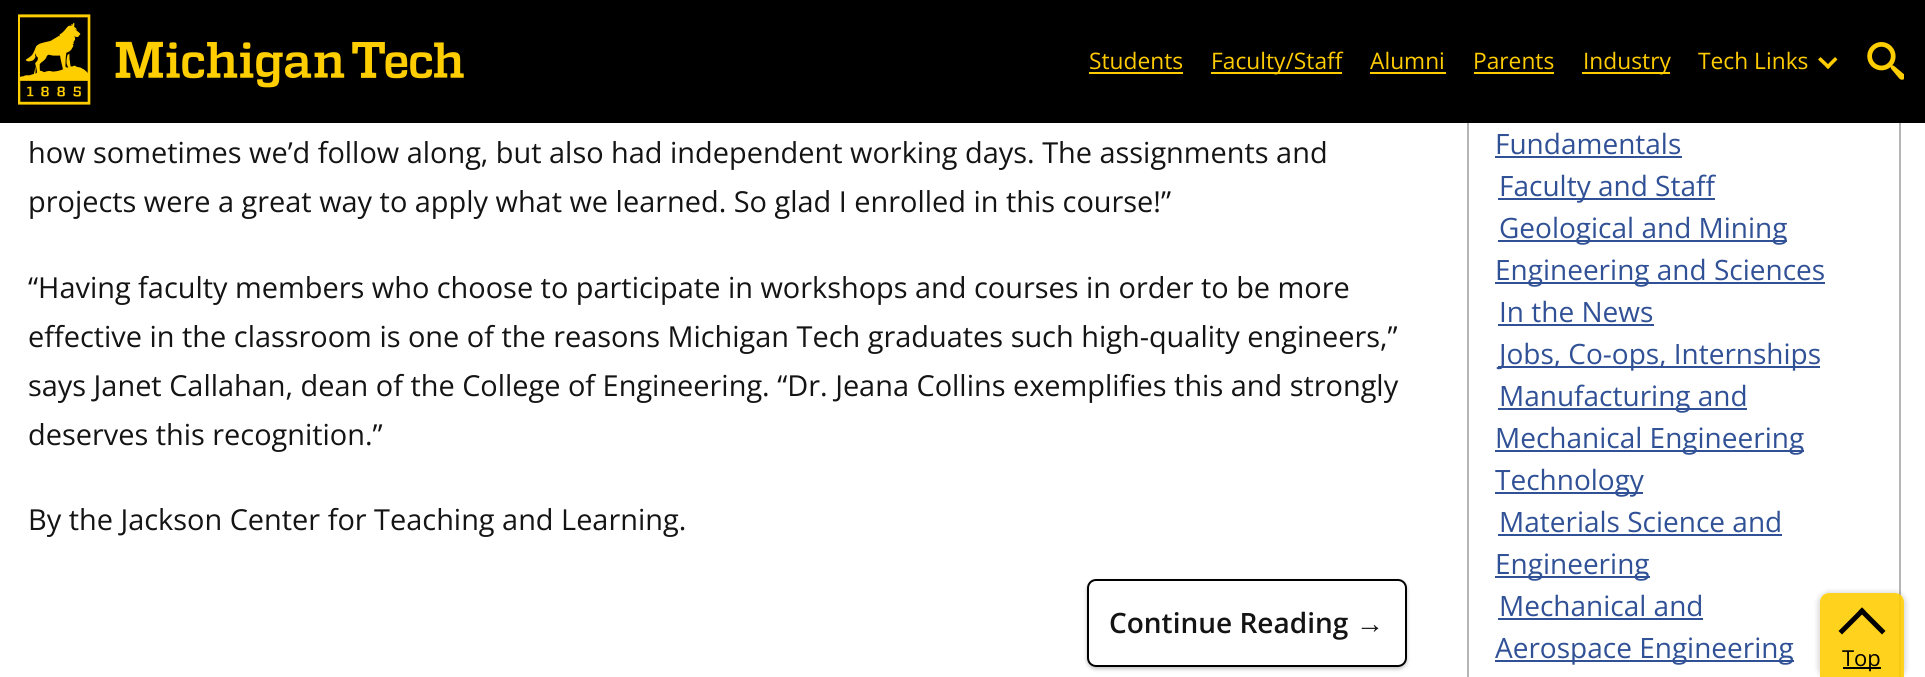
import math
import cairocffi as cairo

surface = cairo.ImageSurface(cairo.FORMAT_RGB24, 1925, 677)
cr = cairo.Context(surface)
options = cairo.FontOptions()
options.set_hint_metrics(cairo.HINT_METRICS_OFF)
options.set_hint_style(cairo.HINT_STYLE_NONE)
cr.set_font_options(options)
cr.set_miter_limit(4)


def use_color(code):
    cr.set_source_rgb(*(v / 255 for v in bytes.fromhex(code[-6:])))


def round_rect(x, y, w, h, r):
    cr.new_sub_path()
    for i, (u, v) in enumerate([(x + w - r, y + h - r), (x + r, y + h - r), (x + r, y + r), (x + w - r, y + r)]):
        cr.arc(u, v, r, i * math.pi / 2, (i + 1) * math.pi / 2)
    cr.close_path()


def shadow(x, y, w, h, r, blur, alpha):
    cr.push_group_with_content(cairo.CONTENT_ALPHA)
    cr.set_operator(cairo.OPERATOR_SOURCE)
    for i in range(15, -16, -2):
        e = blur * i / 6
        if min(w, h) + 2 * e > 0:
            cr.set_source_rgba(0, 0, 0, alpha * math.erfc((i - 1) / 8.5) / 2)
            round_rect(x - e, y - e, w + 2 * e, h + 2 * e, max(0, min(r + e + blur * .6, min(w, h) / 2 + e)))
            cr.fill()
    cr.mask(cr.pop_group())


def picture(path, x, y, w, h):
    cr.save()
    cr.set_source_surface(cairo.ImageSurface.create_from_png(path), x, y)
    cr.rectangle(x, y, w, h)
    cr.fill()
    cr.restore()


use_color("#ffffff")
cr.paint()
use_color("#000000")
cr.rectangle(0, 0, 1925, 123)
cr.fill()
picture("img1.png", 18, 14, 446, 91)
cr.select_font_face("Open Sans")
cr.set_font_size(22.75)
use_color("#ffcc00")
cr.move_to(1089, 69)
cr.show_text("Students")
cr.rectangle(1089, 72, 94, 2)
cr.fill()
cr.rectangle(1211, 72, 131, 2)
cr.fill()
cr.move_to(1211, 69)
cr.show_text("Faculty/Staff")
cr.move_to(1370, 69)
cr.show_text("Alumni")
cr.rectangle(1370, 72, 76, 2)
cr.fill()
cr.move_to(1473, 69)
cr.show_text("Parents")
cr.rectangle(1474, 72, 80, 2)
cr.fill()
cr.rectangle(1582, 72, 88, 2)
cr.fill()
cr.move_to(1583, 69)
cr.show_text("Industry")
cr.move_to(1698, 69)
cr.show_text("Tech Links")
cr.new_path()
cr.move_to(1835, 57)
cr.line_to(1837.5, 59.5)
cr.line_to(1828, 69)
cr.line_to(1825.5, 66.5)
cr.close_path()
cr.fill()
cr.new_path()
cr.move_to(1820.5, 57)
cr.line_to(1830.5, 66.5)
cr.line_to(1828, 69)
cr.line_to(1818, 59.5)
cr.close_path()
cr.fill()
picture("img2.png", 1867, 42, 37, 38)
cr.set_font_size(28.9)
use_color("#141414")
cr.move_to(28, 163)
cr.show_text("how sometimes we’d follow along, but also had independent working days. The assignments and")
cr.move_to(28, 212)
cr.show_text("projects were a great way to apply what we learned. So glad I enrolled in this course!”")
cr.move_to(28, 298)
cr.show_text("“Having faculty members who choose to participate in workshops and courses in order to be more")
cr.move_to(28, 347)
cr.show_text("effective in the classroom is one of the reasons Michigan Tech graduates such high-quality engineers,”")
cr.move_to(28, 396)
cr.show_text("says Janet Callahan, dean of the College of Engineering. “Dr. Jeana Collins exemplifies this and strongly")
cr.move_to(28, 445)
cr.show_text("deserves this recognition.”")
cr.move_to(28, 530)
cr.show_text("By the Jackson Center for Teaching and Learning.")
cr.save()
cr.set_fill_rule(cairo.FILL_RULE_EVEN_ODD)
cr.new_path()
cr.move_to(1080, 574)
cr.line_to(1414, 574)
cr.line_to(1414, 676)
cr.line_to(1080, 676)
cr.close_path()
cr.move_to(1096, 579)
cr.line_to(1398, 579)
cr.curve_to(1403, 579, 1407, 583, 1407, 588)
cr.line_to(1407, 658)
cr.curve_to(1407, 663, 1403, 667, 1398, 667)
cr.line_to(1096, 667)
cr.curve_to(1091, 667, 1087, 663, 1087, 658)
cr.line_to(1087, 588)
cr.curve_to(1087, 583, 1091, 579, 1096, 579)
cr.close_path()
cr.clip()
use_color("#000000")
shadow(1087, 581, 320, 88, 9, 2, 0.25)
cr.restore()
round_rect(1088, 580, 318, 86, 8)
use_color("#000000")
cr.stroke()
cr.select_font_face("Open Sans SemiBold")
cr.set_font_size(28)
use_color("#141414")
cr.move_to(1109, 633)
cr.show_text("Continue Reading")
cr.select_font_face("Liberation Sans", cairo.FONT_SLANT_NORMAL, cairo.FONT_WEIGHT_BOLD)
cr.move_to(1356, 633)
cr.show_text("→")
use_color("#b5b5b5")
cr.rectangle(1899, 123, 2, 554)
cr.fill()
cr.rectangle(1467, 123, 2, 554)
cr.fill()
cr.select_font_face("Open Sans")
use_color("#315196")
cr.move_to(1495, 154)
cr.show_text("Fundamentals")
cr.rectangle(1495, 156, 187, 2)
cr.fill()
cr.rectangle(1498, 198, 217, 2)
cr.fill()
cr.move_to(1499, 196)
cr.show_text("Faculty and Staff")
cr.rectangle(1498, 240, 289, 2)
cr.fill()
cr.move_to(1499, 238)
cr.show_text("Geological and Mining")
cr.rectangle(1495, 282, 330, 2)
cr.fill()
cr.move_to(1495, 280)
cr.show_text("Engineering and Sciences")
cr.move_to(1499, 322)
cr.show_text("In the News")
cr.rectangle(1498, 324, 156, 2)
cr.fill()
cr.rectangle(1498, 366, 322, 2)
cr.fill()
cr.move_to(1499, 364)
cr.show_text("Jobs, Co-ops, Internships")
cr.rectangle(1498, 408, 249, 2)
cr.fill()
cr.move_to(1499, 406)
cr.show_text("Manufacturing and")
cr.rectangle(1495, 450, 309, 2)
cr.fill()
cr.move_to(1495, 448)
cr.show_text("Mechanical Engineering")
cr.rectangle(1495, 492, 148, 2)
cr.fill()
cr.move_to(1495, 490)
cr.show_text("Technology")
cr.move_to(1499, 532)
cr.show_text("Materials Science and")
cr.rectangle(1498, 534, 284, 2)
cr.fill()
cr.rectangle(1495, 576, 155, 2)
cr.fill()
cr.move_to(1495, 574)
cr.show_text("Engineering")
cr.move_to(1499, 616)
cr.show_text("Mechanical and")
cr.rectangle(1498, 618, 205, 2)
cr.fill()
cr.rectangle(1495, 660, 299, 2)
cr.fill()
cr.move_to(1495, 658)
cr.show_text("Aerospace Engineering")
cr.save()
cr.set_fill_rule(cairo.FILL_RULE_EVEN_ODD)
cr.new_path()
cr.move_to(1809, 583)
cr.line_to(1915, 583)
cr.line_to(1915, 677)
cr.line_to(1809, 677)
cr.close_path()
cr.move_to(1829, 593)
cr.line_to(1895, 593)
cr.curve_to(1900, 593, 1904, 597, 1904, 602)
cr.line_to(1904, 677)
cr.line_to(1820, 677)
cr.line_to(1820, 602)
cr.curve_to(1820, 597, 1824, 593, 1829, 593)
cr.close_path()
cr.clip()
use_color("#000000")
shadow(1818, 592, 88, 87, 11, 2.5, 0.15)
cr.restore()
cr.set_source_rgba(1, 0.8, 0, 0.88)
cr.new_path()
cr.move_to(1829, 593)
cr.line_to(1895, 593)
cr.curve_to(1900, 593, 1904, 597, 1904, 602)
cr.line_to(1904, 677)
cr.line_to(1820, 677)
cr.line_to(1820, 602)
cr.curve_to(1820, 597, 1824, 593, 1829, 593)
cr.close_path()
cr.fill()
use_color("#000000")
cr.new_path()
cr.move_to(1838.5, 631)
cr.line_to(1862, 607.5)
cr.line_to(1865.5, 611)
cr.line_to(1842, 634.5)
cr.close_path()
cr.fill()
cr.new_path()
cr.move_to(1858.5, 611)
cr.line_to(1862, 607.5)
cr.line_to(1885.5, 631)
cr.line_to(1882, 634.5)
cr.close_path()
cr.fill()
cr.rectangle(1843, 667, 38, 2)
cr.fill()
cr.set_font_size(22)
cr.move_to(1842, 666)
cr.show_text("Top")
surface.write_to_png("result.png")
